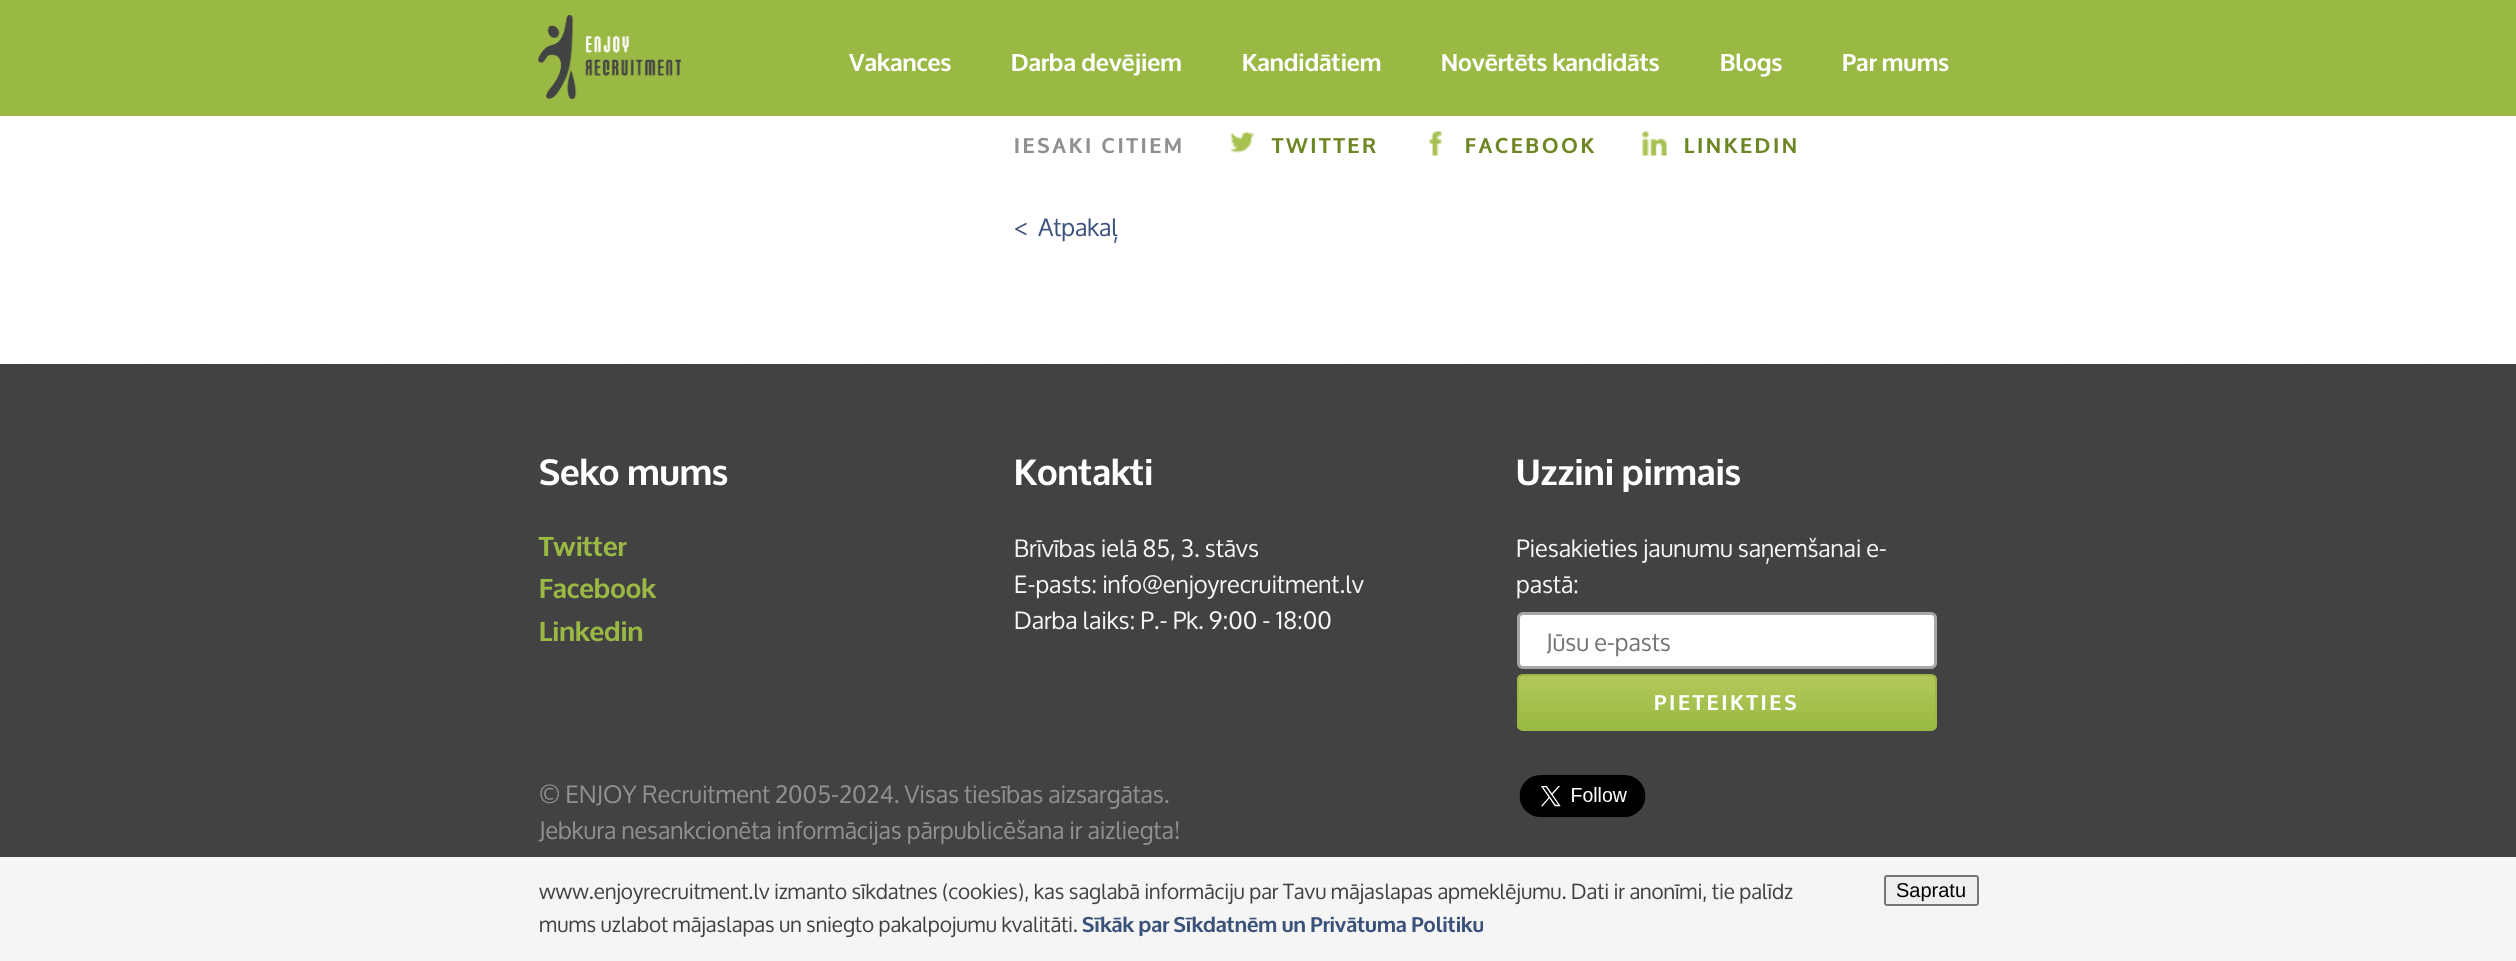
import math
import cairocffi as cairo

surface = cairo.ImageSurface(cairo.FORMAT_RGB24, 2516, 961)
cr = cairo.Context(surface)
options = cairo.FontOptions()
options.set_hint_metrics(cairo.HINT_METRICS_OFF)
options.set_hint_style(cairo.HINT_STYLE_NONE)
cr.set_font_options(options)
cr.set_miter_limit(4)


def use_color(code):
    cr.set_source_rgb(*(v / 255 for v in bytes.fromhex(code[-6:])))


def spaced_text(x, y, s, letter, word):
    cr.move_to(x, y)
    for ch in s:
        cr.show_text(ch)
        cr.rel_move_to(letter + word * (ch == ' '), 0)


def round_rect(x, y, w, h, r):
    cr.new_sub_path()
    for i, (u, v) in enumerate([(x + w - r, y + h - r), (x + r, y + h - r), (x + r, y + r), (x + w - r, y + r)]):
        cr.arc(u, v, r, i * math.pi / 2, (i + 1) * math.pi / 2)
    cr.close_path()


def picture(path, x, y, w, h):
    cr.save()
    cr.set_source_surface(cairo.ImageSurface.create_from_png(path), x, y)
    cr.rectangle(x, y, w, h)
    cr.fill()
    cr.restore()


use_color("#ffffff")
cr.paint()
use_color("#9ab944")
cr.rectangle(0, 0, 2516, 116)
cr.fill()
picture("img1.png", 538, 15, 143, 84)
picture("img2.png", 538, 15, 143, 84)
cr.select_font_face("Oxygen", cairo.FONT_SLANT_NORMAL, cairo.FONT_WEIGHT_BOLD)
cr.set_font_size(24)
use_color("#ffffff")
cr.move_to(849, 71)
cr.show_text("Vakances")
cr.move_to(1011, 71)
cr.show_text("Darba devējiem")
cr.move_to(1242, 71)
cr.show_text("Kandidātiem")
cr.move_to(1441, 71)
cr.show_text("Novērtēts kandidāts")
cr.move_to(1720, 71)
cr.show_text("Blogs")
cr.move_to(1842, 71)
cr.show_text("Par mums")
cr.set_font_size(21)
use_color("#909090")
spaced_text(1014, 153, "IESAKI CITIEM", 3, 0)
picture("img3.png", 1230, 131, 24, 22)
use_color("#6c8623")
spaced_text(1272, 153, "TWITTER", 3, 0)
picture("img4.png", 1429, 131, 13, 25)
spaced_text(1465, 153, "FACEBOOK", 3, 0)
picture("img5.png", 1642, 131, 25, 25)
spaced_text(1684, 153, "LINKEDIN", 3, 0)
cr.select_font_face("Oxygen")
cr.set_font_size(24)
use_color("#3a527a")
cr.move_to(1014, 236)
cr.show_text("<  Atpakaļ")
use_color("#424242")
cr.rectangle(0, 365, 2516, 492)
cr.fill()
picture("img6.png", 0, 364, 2516, 1)
cr.select_font_face("Oxygen", cairo.FONT_SLANT_NORMAL, cairo.FONT_WEIGHT_BOLD)
cr.set_font_size(36)
use_color("#ffffff")
cr.move_to(539, 485)
cr.show_text("Seko mums")
cr.set_font_size(27)
use_color("#9ab944")
cr.move_to(539, 556)
cr.show_text("Twitter")
cr.move_to(539, 598)
cr.show_text("Facebook")
cr.move_to(539, 641)
cr.show_text("Linkedin")
cr.set_font_size(36)
use_color("#ffffff")
cr.move_to(1014, 485)
cr.show_text("Kontakti")
cr.select_font_face("Oxygen")
cr.set_font_size(24)
use_color("#f5f5f5")
cr.move_to(1014, 557)
cr.show_text("Brīvības ielā 85, 3. stāvs")
cr.move_to(1014, 593)
cr.show_text("E-pasts: info@enjoyrecruitment.lv")
cr.move_to(1014, 629)
cr.show_text("Darba laiks: P.- Pk. 9:00 - 18:00")
cr.select_font_face("Oxygen", cairo.FONT_SLANT_NORMAL, cairo.FONT_WEIGHT_BOLD)
cr.set_font_size(36)
use_color("#ffffff")
cr.move_to(1516, 485)
cr.show_text("Uzzini pirmais")
cr.select_font_face("Oxygen")
cr.set_font_size(24)
use_color("#f5f5f5")
cr.move_to(1516, 557)
cr.show_text("Piesakieties jaunumu saņemšanai e-")
cr.move_to(1516, 593)
cr.show_text("pastā:")
use_color("#ffffff")
round_rect(1518.5, 613.5, 417, 54, 4.5)
cr.fill_preserve()
use_color("#a6a6a6")
cr.set_line_width(3)
cr.stroke()
cr.save()
cr.rectangle(1547, 617, 360, 51)
cr.clip()
use_color("#757575")
cr.move_to(1546, 651)
cr.show_text("Jūsu e-pasts")
cr.restore()
cr.save()
round_rect(1517, 674, 420, 57, 6)
cr.clip()
gradient = cairo.LinearGradient(1727, 729, 1727, 675)
gradient.add_color_stop_rgba(0, 0.604, 0.725, 0.267, 1)
gradient.add_color_stop_rgba(1, 0.698, 0.788, 0.349, 1)
cr.set_source(gradient)
cr.rectangle(1517, 675, 420, 54)
cr.fill()
cr.restore()
round_rect(1518, 675, 418, 55, 5)
use_color("#9ab944")
cr.set_line_width(2)
cr.stroke()
cr.select_font_face("Oxygen", cairo.FONT_SLANT_NORMAL, cairo.FONT_WEIGHT_BOLD)
cr.set_font_size(21)
use_color("#ffffff")
spaced_text(1654, 710, "PIETEIKTIES", 3, 0)
cr.select_font_face("Oxygen")
cr.set_font_size(24)
use_color("#909090")
cr.move_to(539, 803)
cr.show_text("© ENJOY Recruitment 2005-2024. Visas tiesības aizsargātas.")
cr.move_to(539, 839)
cr.show_text("Jebkura nesankcionēta informācijas pārpublicēšana ir aizliegta!")
picture("img7.png", 1519, 775, 127, 42)
use_color("#f5f5f5")
cr.rectangle(0, 857, 2516, 104)
cr.fill()
cr.set_font_size(21)
use_color("#424242")
cr.move_to(539, 899)
cr.show_text("www.enjoyrecruitment.lv izmanto sīkdatnes (cookies), kas saglabā informāciju par Tavu mājaslapas apmeklējumu. Dati ir anonīmi, tie palīdz")
use_color("#efefef")
round_rect(1885, 876, 93, 29, 2)
cr.fill_preserve()
use_color("#767676")
cr.stroke()
cr.select_font_face("Liberation Sans")
cr.set_font_size(20)
use_color("#000000")
cr.move_to(1896, 897)
cr.show_text("Sapratu")
cr.select_font_face("Oxygen")
cr.set_font_size(21)
use_color("#424242")
cr.move_to(539, 932)
cr.show_text("mums uzlabot mājaslapas un sniegto pakalpojumu kvalitāti.")
cr.select_font_face("Oxygen", cairo.FONT_SLANT_NORMAL, cairo.FONT_WEIGHT_BOLD)
use_color("#3a527a")
cr.move_to(1082, 932)
cr.show_text("Sīkāk par Sīkdatnēm un Privātuma Politiku")
surface.write_to_png("result.png")
